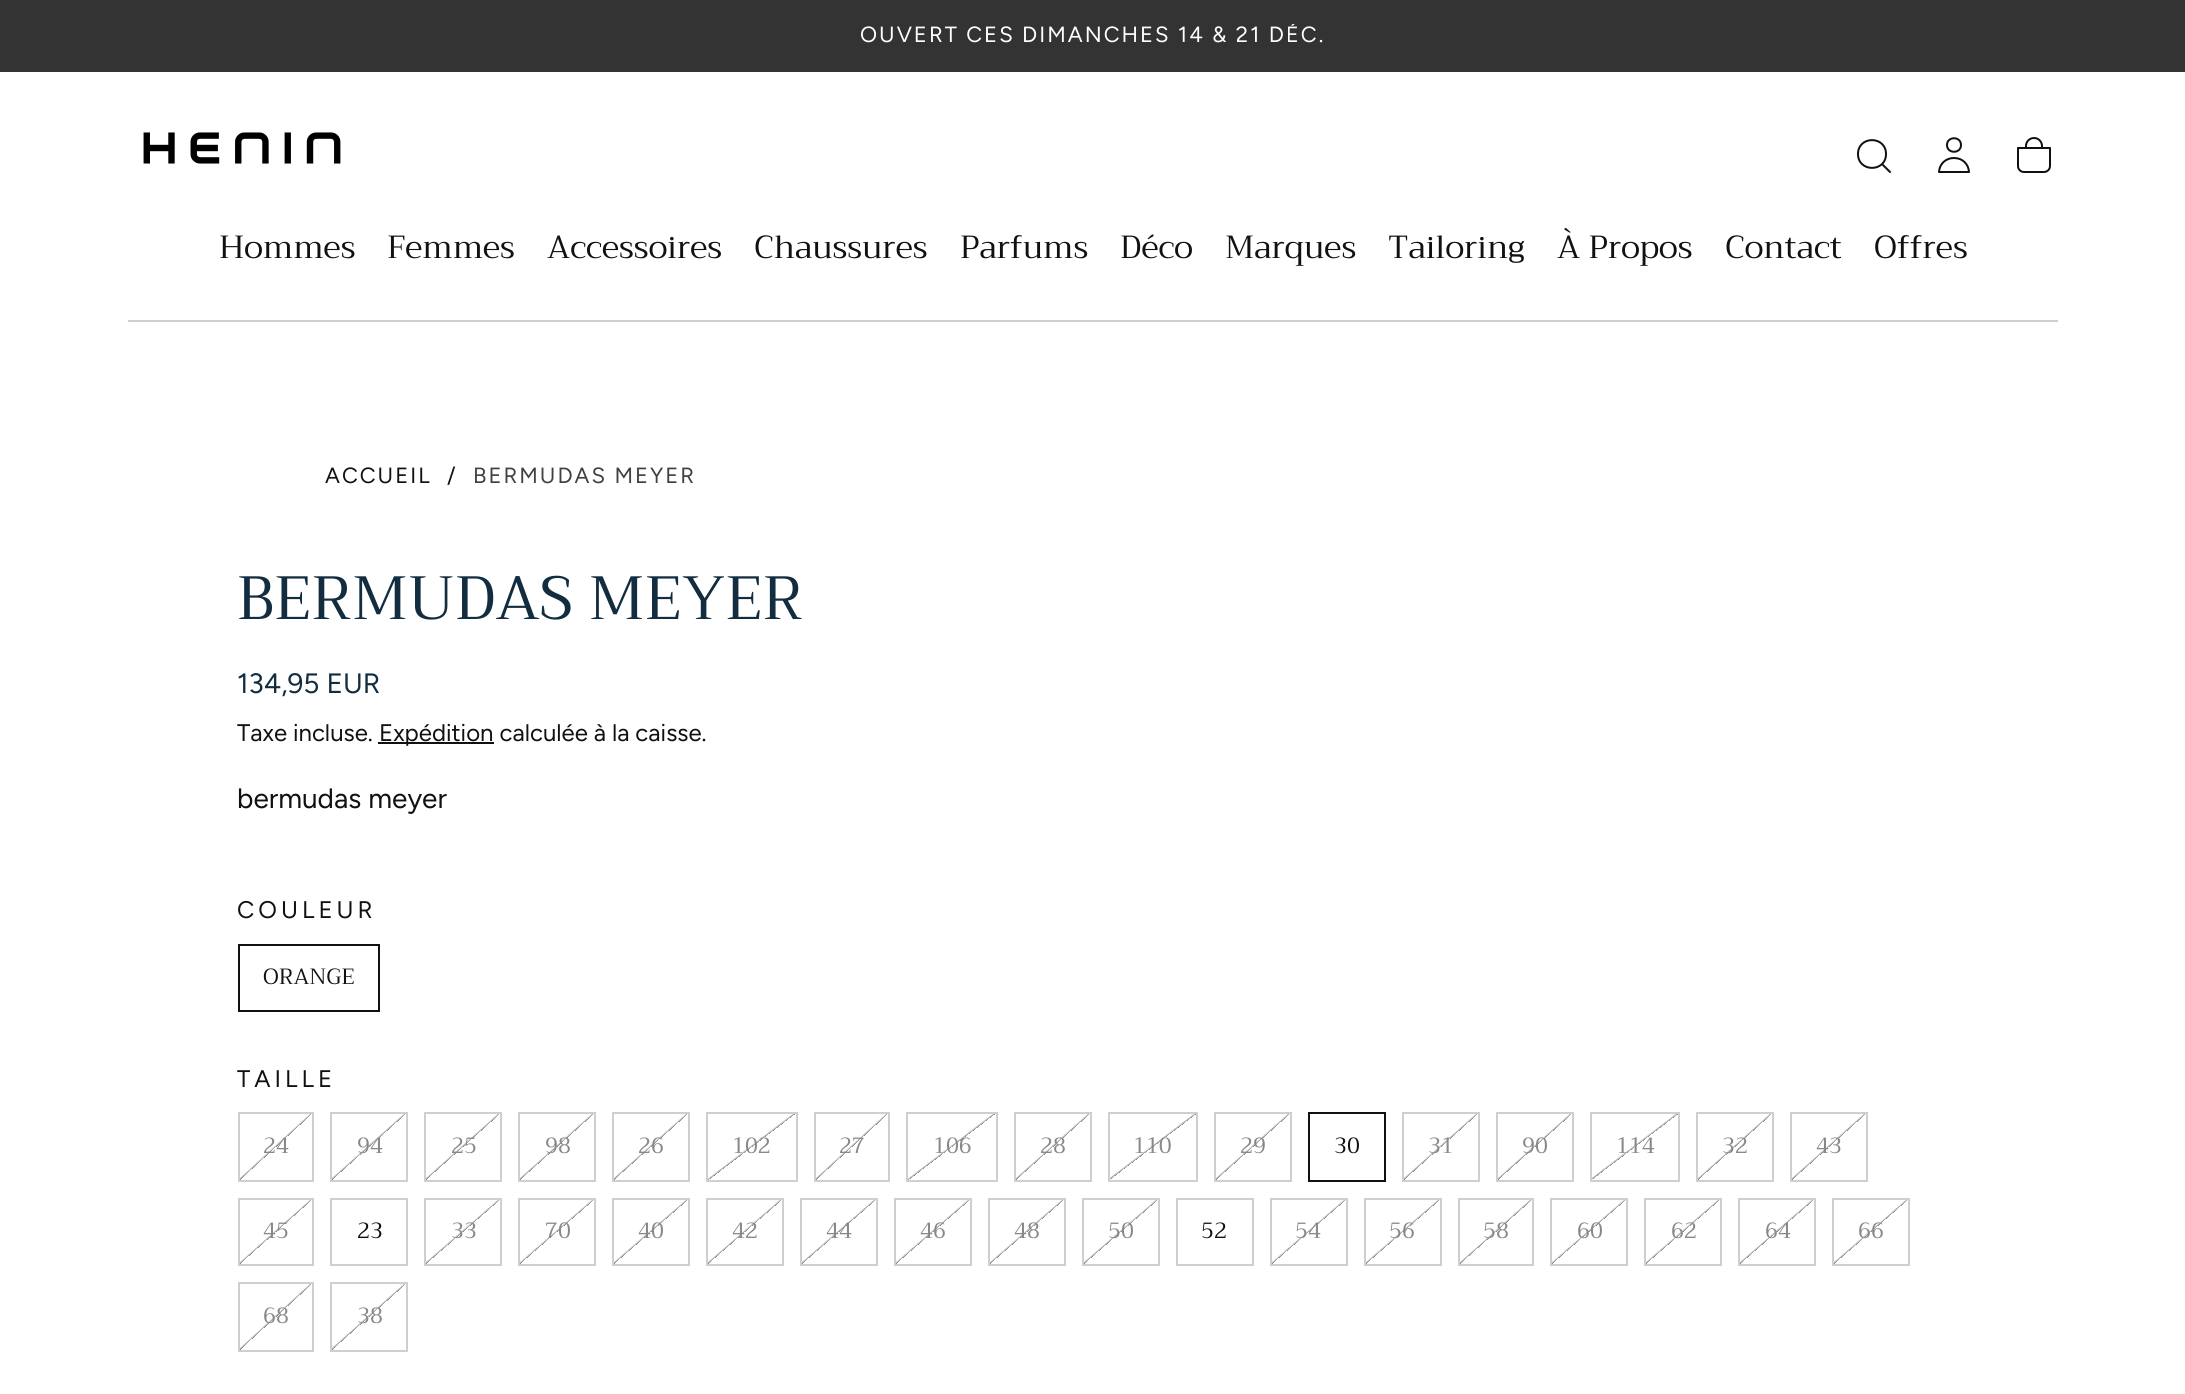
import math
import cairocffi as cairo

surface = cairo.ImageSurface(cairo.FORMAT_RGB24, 2185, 1394)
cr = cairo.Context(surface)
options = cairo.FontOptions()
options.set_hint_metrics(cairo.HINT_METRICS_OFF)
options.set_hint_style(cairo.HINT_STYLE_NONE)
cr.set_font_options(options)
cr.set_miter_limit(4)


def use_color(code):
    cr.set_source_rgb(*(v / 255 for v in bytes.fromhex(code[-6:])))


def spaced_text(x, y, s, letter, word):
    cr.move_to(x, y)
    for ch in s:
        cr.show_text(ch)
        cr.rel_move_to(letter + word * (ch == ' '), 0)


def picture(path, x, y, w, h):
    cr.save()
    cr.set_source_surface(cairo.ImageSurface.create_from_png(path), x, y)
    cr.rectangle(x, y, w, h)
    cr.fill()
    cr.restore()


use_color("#ffffff")
cr.paint()
use_color("#333333")
cr.rectangle(0, 0, 2185, 72)
cr.fill()
cr.save()
cr.rectangle(128, 24, 1930, 24)
cr.clip()
cr.select_font_face("Figtree")
cr.set_font_size(22)
use_color("#ffffff")
spaced_text(860, 42, "OUVERT CES DIMANCHES 14 & 21 DÉC.", 2, 0)
cr.restore()
picture("img1.png", 143, 132, 198, 32)
cr.new_path()
cr.move_to(1890, 172)
cr.line_to(1882, 164)
cr.move_to(1886, 154)
cr.curve_to(1886, 172.5, 1858, 172.5, 1858, 154)
cr.curve_to(1858, 135.5, 1886, 135.5, 1886, 154)
cr.close_path()
use_color("#111111")
cr.set_line_cap(cairo.LINE_CAP_ROUND)
cr.stroke()
cr.new_path()
cr.move_to(1961, 145)
cr.curve_to(1961, 154, 1947, 154, 1947, 145)
cr.curve_to(1947, 136, 1961, 136, 1961, 145)
cr.close_path()
cr.move_to(1954, 158)
cr.curve_to(1945.5, 158, 1939.5, 164, 1939, 172)
cr.line_to(1969, 172)
cr.curve_to(1968.5, 164, 1962.5, 158, 1954, 158)
cr.close_path()
cr.set_line_cap(cairo.LINE_CAP_BUTT)
cr.set_line_join(cairo.LINE_JOIN_ROUND)
cr.stroke()
picture("img2.png", 2017, 137, 34, 36)
cr.select_font_face("Trirong")
cr.set_font_size(32)
cr.move_to(219, 258)
cr.show_text("Hommes")
cr.move_to(387, 258)
cr.show_text("Femmes")
cr.move_to(547, 258)
cr.show_text("Accessoires")
cr.move_to(754, 258)
cr.show_text("Chaussures")
cr.move_to(960, 258)
cr.show_text("Parfums")
cr.move_to(1120, 258)
cr.show_text("Déco")
cr.move_to(1225, 258)
cr.show_text("Marques")
cr.move_to(1388, 258)
cr.show_text("Tailoring")
cr.move_to(1557, 258)
cr.show_text("À Propos")
cr.move_to(1725, 258)
cr.show_text("Contact")
cr.move_to(1874, 258)
cr.show_text("Offres")
use_color("#cfcfcf")
cr.rectangle(128, 320, 1930, 2)
cr.fill()
cr.select_font_face("Figtree")
cr.set_font_size(22)
use_color("#111111")
spaced_text(325, 483, "ACCUEIL", 2, 0)
spaced_text(447, 483, "/", 2, 0)
use_color("#414141")
spaced_text(473, 483, "BERMUDAS MEYER", 2, 0)
cr.select_font_face("Trirong")
cr.set_font_size(61)
use_color("#132d40")
cr.move_to(237, 619)
cr.show_text("BERMUDAS MEYER")
cr.select_font_face("Figtree")
cr.set_font_size(28)
cr.move_to(237, 693)
cr.show_text("134,95 EUR")
cr.set_font_size(24)
use_color("#111111")
cr.move_to(237, 741)
cr.show_text("Taxe incluse.")
cr.rectangle(378, 742, 116, 2)
cr.fill()
cr.move_to(379, 741)
cr.show_text("Expédition calculée à la caisse.")
cr.set_font_size(28)
cr.move_to(237, 808)
cr.show_text("bermudas meyer")
cr.set_font_size(24)
spaced_text(237, 918, "COULEUR", 4, 0)
cr.rectangle(239, 945, 140, 66)
cr.set_line_join(cairo.LINE_JOIN_MITER)
cr.stroke()
cr.select_font_face("Trirong")
cr.set_font_size(22)
cr.move_to(263, 984)
cr.show_text("ORANGE")
cr.select_font_face("Figtree")
cr.set_font_size(24)
spaced_text(237, 1087, "TAILLE", 4, 0)
cr.rectangle(239, 1113, 74, 68)
use_color("#cfcfcf")
cr.stroke()
gradient = cairo.LinearGradient(243, 1111, 309, 1183)
gradient.add_color_stop_rgba(0, 1, 1, 1, 0)
gradient.add_color_stop_rgba(0.48, 0.533, 0.533, 0.533, 0)
gradient.add_color_stop_rgba(0.5, 0.533, 0.533, 0.533, 1)
gradient.add_color_stop_rgba(0.5, 0.533, 0.533, 0.533, 0)
gradient.add_color_stop_rgba(1, 1, 1, 1, 0)
cr.set_source(gradient)
cr.rectangle(240, 1114, 71, 66)
cr.fill()
cr.select_font_face("Trirong")
cr.set_font_size(22)
use_color("#888888")
cr.move_to(263, 1153)
cr.show_text("24")
cr.rectangle(331, 1113, 76, 68)
use_color("#cfcfcf")
cr.stroke()
gradient = cairo.LinearGradient(336, 1110, 402, 1184)
gradient.add_color_stop_rgba(0, 1, 1, 1, 0)
gradient.add_color_stop_rgba(0.48, 0.533, 0.533, 0.533, 0)
gradient.add_color_stop_rgba(0.5, 0.533, 0.533, 0.533, 1)
gradient.add_color_stop_rgba(0.5, 0.533, 0.533, 0.533, 0)
gradient.add_color_stop_rgba(1, 1, 1, 1, 0)
cr.set_source(gradient)
cr.rectangle(332, 1114, 73, 66)
cr.fill()
use_color("#888888")
cr.move_to(357, 1153)
cr.show_text("94")
cr.rectangle(425, 1113, 76, 68)
use_color("#cfcfcf")
cr.stroke()
gradient = cairo.LinearGradient(430, 1110, 496, 1184)
gradient.add_color_stop_rgba(0, 1, 1, 1, 0)
gradient.add_color_stop_rgba(0.48, 0.533, 0.533, 0.533, 0)
gradient.add_color_stop_rgba(0.5, 0.533, 0.533, 0.533, 1)
gradient.add_color_stop_rgba(0.5, 0.533, 0.533, 0.533, 0)
gradient.add_color_stop_rgba(1, 1, 1, 1, 0)
cr.set_source(gradient)
cr.rectangle(426, 1114, 73, 66)
cr.fill()
use_color("#888888")
cr.move_to(451, 1153)
cr.show_text("25")
cr.rectangle(519, 1113, 76, 68)
use_color("#cfcfcf")
cr.stroke()
gradient = cairo.LinearGradient(524, 1110, 590, 1184)
gradient.add_color_stop_rgba(0, 1, 1, 1, 0)
gradient.add_color_stop_rgba(0.48, 0.533, 0.533, 0.533, 0)
gradient.add_color_stop_rgba(0.5, 0.533, 0.533, 0.533, 1)
gradient.add_color_stop_rgba(0.5, 0.533, 0.533, 0.533, 0)
gradient.add_color_stop_rgba(1, 1, 1, 1, 0)
cr.set_source(gradient)
cr.rectangle(520, 1114, 73, 66)
cr.fill()
use_color("#888888")
cr.move_to(545, 1153)
cr.show_text("98")
cr.rectangle(613, 1113, 76, 68)
use_color("#cfcfcf")
cr.stroke()
gradient = cairo.LinearGradient(618, 1110, 684, 1184)
gradient.add_color_stop_rgba(0, 1, 1, 1, 0)
gradient.add_color_stop_rgba(0.48, 0.533, 0.533, 0.533, 0)
gradient.add_color_stop_rgba(0.5, 0.533, 0.533, 0.533, 1)
gradient.add_color_stop_rgba(0.5, 0.533, 0.533, 0.533, 0)
gradient.add_color_stop_rgba(1, 1, 1, 1, 0)
cr.set_source(gradient)
cr.rectangle(614, 1114, 73, 66)
cr.fill()
use_color("#888888")
cr.move_to(638, 1153)
cr.show_text("26")
cr.rectangle(707, 1113, 90, 68)
use_color("#cfcfcf")
cr.stroke()
gradient = cairo.LinearGradient(720, 1105, 784, 1189)
gradient.add_color_stop_rgba(0, 1, 1, 1, 0)
gradient.add_color_stop_rgba(0.48, 0.533, 0.533, 0.533, 0)
gradient.add_color_stop_rgba(0.5, 0.533, 0.533, 0.533, 1)
gradient.add_color_stop_rgba(0.5, 0.533, 0.533, 0.533, 0)
gradient.add_color_stop_rgba(1, 1, 1, 1, 0)
cr.set_source(gradient)
cr.rectangle(708, 1114, 87, 66)
cr.fill()
use_color("#888888")
cr.move_to(732, 1153)
cr.show_text("102")
cr.rectangle(815, 1113, 74, 68)
use_color("#cfcfcf")
cr.stroke()
gradient = cairo.LinearGradient(819, 1111, 885, 1183)
gradient.add_color_stop_rgba(0, 1, 1, 1, 0)
gradient.add_color_stop_rgba(0.48, 0.533, 0.533, 0.533, 0)
gradient.add_color_stop_rgba(0.5, 0.533, 0.533, 0.533, 1)
gradient.add_color_stop_rgba(0.5, 0.533, 0.533, 0.533, 0)
gradient.add_color_stop_rgba(1, 1, 1, 1, 0)
cr.set_source(gradient)
cr.rectangle(816, 1114, 71, 66)
cr.fill()
use_color("#888888")
cr.move_to(839, 1153)
cr.show_text("27")
cr.rectangle(907, 1113, 90, 68)
use_color("#cfcfcf")
cr.stroke()
gradient = cairo.LinearGradient(920, 1105, 984, 1189)
gradient.add_color_stop_rgba(0, 1, 1, 1, 0)
gradient.add_color_stop_rgba(0.48, 0.533, 0.533, 0.533, 0)
gradient.add_color_stop_rgba(0.5, 0.533, 0.533, 0.533, 1)
gradient.add_color_stop_rgba(0.5, 0.533, 0.533, 0.533, 0)
gradient.add_color_stop_rgba(1, 1, 1, 1, 0)
cr.set_source(gradient)
cr.rectangle(908, 1114, 87, 66)
cr.fill()
use_color("#888888")
cr.move_to(933, 1153)
cr.show_text("106")
cr.rectangle(1015, 1113, 76, 68)
use_color("#cfcfcf")
cr.stroke()
gradient = cairo.LinearGradient(1020, 1110, 1086, 1184)
gradient.add_color_stop_rgba(0, 1, 1, 1, 0)
gradient.add_color_stop_rgba(0.48, 0.533, 0.533, 0.533, 0)
gradient.add_color_stop_rgba(0.5, 0.533, 0.533, 0.533, 1)
gradient.add_color_stop_rgba(0.5, 0.533, 0.533, 0.533, 0)
gradient.add_color_stop_rgba(1, 1, 1, 1, 0)
cr.set_source(gradient)
cr.rectangle(1016, 1114, 73, 66)
cr.fill()
use_color("#888888")
cr.move_to(1040, 1153)
cr.show_text("28")
cr.rectangle(1109, 1113, 88, 68)
use_color("#cfcfcf")
cr.stroke()
gradient = cairo.LinearGradient(1121, 1105, 1185, 1189)
gradient.add_color_stop_rgba(0, 1, 1, 1, 0)
gradient.add_color_stop_rgba(0.48, 0.533, 0.533, 0.533, 0)
gradient.add_color_stop_rgba(0.5, 0.533, 0.533, 0.533, 1)
gradient.add_color_stop_rgba(0.5, 0.533, 0.533, 0.533, 0)
gradient.add_color_stop_rgba(1, 1, 1, 1, 0)
cr.set_source(gradient)
cr.rectangle(1110, 1114, 86, 65)
cr.fill()
use_color("#888888")
cr.move_to(1133, 1153)
cr.show_text("110")
cr.rectangle(1215, 1113, 76, 68)
use_color("#cfcfcf")
cr.stroke()
gradient = cairo.LinearGradient(1220, 1110, 1286, 1184)
gradient.add_color_stop_rgba(0, 1, 1, 1, 0)
gradient.add_color_stop_rgba(0.48, 0.533, 0.533, 0.533, 0)
gradient.add_color_stop_rgba(0.5, 0.533, 0.533, 0.533, 1)
gradient.add_color_stop_rgba(0.5, 0.533, 0.533, 0.533, 0)
gradient.add_color_stop_rgba(1, 1, 1, 1, 0)
cr.set_source(gradient)
cr.rectangle(1216, 1114, 73, 66)
cr.fill()
use_color("#888888")
cr.move_to(1240, 1153)
cr.show_text("29")
cr.rectangle(1309, 1113, 76, 68)
use_color("#111111")
cr.stroke()
cr.move_to(1334, 1153)
cr.show_text("30")
cr.rectangle(1403, 1113, 76, 68)
use_color("#cfcfcf")
cr.stroke()
gradient = cairo.LinearGradient(1408, 1110, 1474, 1184)
gradient.add_color_stop_rgba(0, 1, 1, 1, 0)
gradient.add_color_stop_rgba(0.48, 0.533, 0.533, 0.533, 0)
gradient.add_color_stop_rgba(0.5, 0.533, 0.533, 0.533, 1)
gradient.add_color_stop_rgba(0.5, 0.533, 0.533, 0.533, 0)
gradient.add_color_stop_rgba(1, 1, 1, 1, 0)
cr.set_source(gradient)
cr.rectangle(1404, 1114, 73, 66)
cr.fill()
use_color("#888888")
cr.move_to(1428, 1153)
cr.show_text("31")
cr.rectangle(1497, 1113, 76, 68)
use_color("#cfcfcf")
cr.stroke()
gradient = cairo.LinearGradient(1502, 1110, 1568, 1184)
gradient.add_color_stop_rgba(0, 1, 1, 1, 0)
gradient.add_color_stop_rgba(0.48, 0.533, 0.533, 0.533, 0)
gradient.add_color_stop_rgba(0.5, 0.533, 0.533, 0.533, 1)
gradient.add_color_stop_rgba(0.5, 0.533, 0.533, 0.533, 0)
gradient.add_color_stop_rgba(1, 1, 1, 1, 0)
cr.set_source(gradient)
cr.rectangle(1498, 1114, 73, 66)
cr.fill()
use_color("#888888")
cr.move_to(1522, 1153)
cr.show_text("90")
cr.rectangle(1591, 1113, 88, 68)
use_color("#cfcfcf")
cr.stroke()
gradient = cairo.LinearGradient(1603, 1105, 1667, 1189)
gradient.add_color_stop_rgba(0, 1, 1, 1, 0)
gradient.add_color_stop_rgba(0.48, 0.533, 0.533, 0.533, 0)
gradient.add_color_stop_rgba(0.5, 0.533, 0.533, 0.533, 1)
gradient.add_color_stop_rgba(0.5, 0.533, 0.533, 0.533, 0)
gradient.add_color_stop_rgba(1, 1, 1, 1, 0)
cr.set_source(gradient)
cr.rectangle(1592, 1114, 86, 65)
cr.fill()
use_color("#888888")
cr.move_to(1616, 1153)
cr.show_text("114")
cr.rectangle(1697, 1113, 76, 68)
use_color("#cfcfcf")
cr.stroke()
gradient = cairo.LinearGradient(1702, 1110, 1768, 1184)
gradient.add_color_stop_rgba(0, 1, 1, 1, 0)
gradient.add_color_stop_rgba(0.48, 0.533, 0.533, 0.533, 0)
gradient.add_color_stop_rgba(0.5, 0.533, 0.533, 0.533, 1)
gradient.add_color_stop_rgba(0.5, 0.533, 0.533, 0.533, 0)
gradient.add_color_stop_rgba(1, 1, 1, 1, 0)
cr.set_source(gradient)
cr.rectangle(1698, 1114, 73, 66)
cr.fill()
use_color("#888888")
cr.move_to(1722, 1153)
cr.show_text("32")
cr.rectangle(1791, 1113, 76, 68)
use_color("#cfcfcf")
cr.stroke()
gradient = cairo.LinearGradient(1796, 1110, 1862, 1184)
gradient.add_color_stop_rgba(0, 1, 1, 1, 0)
gradient.add_color_stop_rgba(0.48, 0.533, 0.533, 0.533, 0)
gradient.add_color_stop_rgba(0.5, 0.533, 0.533, 0.533, 1)
gradient.add_color_stop_rgba(0.5, 0.533, 0.533, 0.533, 0)
gradient.add_color_stop_rgba(1, 1, 1, 1, 0)
cr.set_source(gradient)
cr.rectangle(1792, 1114, 73, 66)
cr.fill()
use_color("#888888")
cr.move_to(1816, 1153)
cr.show_text("43")
cr.rectangle(239, 1199, 74, 66)
use_color("#cfcfcf")
cr.stroke()
gradient = cairo.LinearGradient(244, 1196, 308, 1268)
gradient.add_color_stop_rgba(0, 1, 1, 1, 0)
gradient.add_color_stop_rgba(0.48, 0.533, 0.533, 0.533, 0)
gradient.add_color_stop_rgba(0.5, 0.533, 0.533, 0.533, 1)
gradient.add_color_stop_rgba(0.5, 0.533, 0.533, 0.533, 0)
gradient.add_color_stop_rgba(1, 1, 1, 1, 0)
cr.set_source(gradient)
cr.rectangle(240, 1200, 71, 64)
cr.fill()
use_color("#888888")
cr.move_to(263, 1238)
cr.show_text("45")
cr.rectangle(331, 1199, 76, 66)
use_color("#cfcfcf")
cr.stroke()
use_color("#111111")
cr.move_to(357, 1238)
cr.show_text("23")
cr.rectangle(425, 1199, 76, 66)
use_color("#cfcfcf")
cr.stroke()
gradient = cairo.LinearGradient(431, 1195, 495, 1269)
gradient.add_color_stop_rgba(0, 1, 1, 1, 0)
gradient.add_color_stop_rgba(0.48, 0.533, 0.533, 0.533, 0)
gradient.add_color_stop_rgba(0.5, 0.533, 0.533, 0.533, 1)
gradient.add_color_stop_rgba(0.5, 0.533, 0.533, 0.533, 0)
gradient.add_color_stop_rgba(1, 1, 1, 1, 0)
cr.set_source(gradient)
cr.rectangle(426, 1200, 73, 64)
cr.fill()
use_color("#888888")
cr.move_to(451, 1238)
cr.show_text("33")
cr.rectangle(519, 1199, 76, 66)
use_color("#cfcfcf")
cr.stroke()
gradient = cairo.LinearGradient(525, 1195, 589, 1269)
gradient.add_color_stop_rgba(0, 1, 1, 1, 0)
gradient.add_color_stop_rgba(0.48, 0.533, 0.533, 0.533, 0)
gradient.add_color_stop_rgba(0.5, 0.533, 0.533, 0.533, 1)
gradient.add_color_stop_rgba(0.5, 0.533, 0.533, 0.533, 0)
gradient.add_color_stop_rgba(1, 1, 1, 1, 0)
cr.set_source(gradient)
cr.rectangle(520, 1200, 73, 64)
cr.fill()
use_color("#888888")
cr.move_to(545, 1238)
cr.show_text("70")
cr.rectangle(613, 1199, 76, 66)
use_color("#cfcfcf")
cr.stroke()
gradient = cairo.LinearGradient(619, 1195, 683, 1269)
gradient.add_color_stop_rgba(0, 1, 1, 1, 0)
gradient.add_color_stop_rgba(0.48, 0.533, 0.533, 0.533, 0)
gradient.add_color_stop_rgba(0.5, 0.533, 0.533, 0.533, 1)
gradient.add_color_stop_rgba(0.5, 0.533, 0.533, 0.533, 0)
gradient.add_color_stop_rgba(1, 1, 1, 1, 0)
cr.set_source(gradient)
cr.rectangle(614, 1200, 73, 64)
cr.fill()
use_color("#888888")
cr.move_to(638, 1238)
cr.show_text("40")
cr.rectangle(707, 1199, 76, 66)
use_color("#cfcfcf")
cr.stroke()
gradient = cairo.LinearGradient(713, 1195, 777, 1269)
gradient.add_color_stop_rgba(0, 1, 1, 1, 0)
gradient.add_color_stop_rgba(0.48, 0.533, 0.533, 0.533, 0)
gradient.add_color_stop_rgba(0.5, 0.533, 0.533, 0.533, 1)
gradient.add_color_stop_rgba(0.5, 0.533, 0.533, 0.533, 0)
gradient.add_color_stop_rgba(1, 1, 1, 1, 0)
cr.set_source(gradient)
cr.rectangle(708, 1200, 73, 64)
cr.fill()
use_color("#888888")
cr.move_to(732, 1238)
cr.show_text("42")
cr.rectangle(801, 1199, 76, 66)
use_color("#cfcfcf")
cr.stroke()
gradient = cairo.LinearGradient(807, 1195, 871, 1269)
gradient.add_color_stop_rgba(0, 1, 1, 1, 0)
gradient.add_color_stop_rgba(0.48, 0.533, 0.533, 0.533, 0)
gradient.add_color_stop_rgba(0.5, 0.533, 0.533, 0.533, 1)
gradient.add_color_stop_rgba(0.5, 0.533, 0.533, 0.533, 0)
gradient.add_color_stop_rgba(1, 1, 1, 1, 0)
cr.set_source(gradient)
cr.rectangle(802, 1200, 73, 64)
cr.fill()
use_color("#888888")
cr.move_to(826, 1238)
cr.show_text("44")
cr.rectangle(895, 1199, 76, 66)
use_color("#cfcfcf")
cr.stroke()
gradient = cairo.LinearGradient(901, 1195, 965, 1269)
gradient.add_color_stop_rgba(0, 1, 1, 1, 0)
gradient.add_color_stop_rgba(0.48, 0.533, 0.533, 0.533, 0)
gradient.add_color_stop_rgba(0.5, 0.533, 0.533, 0.533, 1)
gradient.add_color_stop_rgba(0.5, 0.533, 0.533, 0.533, 0)
gradient.add_color_stop_rgba(1, 1, 1, 1, 0)
cr.set_source(gradient)
cr.rectangle(896, 1200, 73, 64)
cr.fill()
use_color("#888888")
cr.move_to(920, 1238)
cr.show_text("46")
cr.rectangle(989, 1199, 76, 66)
use_color("#cfcfcf")
cr.stroke()
gradient = cairo.LinearGradient(995, 1195, 1059, 1269)
gradient.add_color_stop_rgba(0, 1, 1, 1, 0)
gradient.add_color_stop_rgba(0.48, 0.533, 0.533, 0.533, 0)
gradient.add_color_stop_rgba(0.5, 0.533, 0.533, 0.533, 1)
gradient.add_color_stop_rgba(0.5, 0.533, 0.533, 0.533, 0)
gradient.add_color_stop_rgba(1, 1, 1, 1, 0)
cr.set_source(gradient)
cr.rectangle(990, 1200, 73, 64)
cr.fill()
use_color("#888888")
cr.move_to(1014, 1238)
cr.show_text("48")
cr.rectangle(1083, 1199, 76, 66)
use_color("#cfcfcf")
cr.stroke()
gradient = cairo.LinearGradient(1089, 1195, 1153, 1269)
gradient.add_color_stop_rgba(0, 1, 1, 1, 0)
gradient.add_color_stop_rgba(0.48, 0.533, 0.533, 0.533, 0)
gradient.add_color_stop_rgba(0.5, 0.533, 0.533, 0.533, 1)
gradient.add_color_stop_rgba(0.5, 0.533, 0.533, 0.533, 0)
gradient.add_color_stop_rgba(1, 1, 1, 1, 0)
cr.set_source(gradient)
cr.rectangle(1084, 1200, 73, 64)
cr.fill()
use_color("#888888")
cr.move_to(1108, 1238)
cr.show_text("50")
cr.rectangle(1177, 1199, 76, 66)
use_color("#cfcfcf")
cr.stroke()
use_color("#111111")
cr.move_to(1201, 1238)
cr.show_text("52")
cr.rectangle(1271, 1199, 76, 66)
use_color("#cfcfcf")
cr.stroke()
gradient = cairo.LinearGradient(1277, 1195, 1341, 1269)
gradient.add_color_stop_rgba(0, 1, 1, 1, 0)
gradient.add_color_stop_rgba(0.48, 0.533, 0.533, 0.533, 0)
gradient.add_color_stop_rgba(0.5, 0.533, 0.533, 0.533, 1)
gradient.add_color_stop_rgba(0.5, 0.533, 0.533, 0.533, 0)
gradient.add_color_stop_rgba(1, 1, 1, 1, 0)
cr.set_source(gradient)
cr.rectangle(1272, 1200, 73, 64)
cr.fill()
use_color("#888888")
cr.move_to(1295, 1238)
cr.show_text("54")
cr.rectangle(1365, 1199, 76, 66)
use_color("#cfcfcf")
cr.stroke()
gradient = cairo.LinearGradient(1371, 1195, 1435, 1269)
gradient.add_color_stop_rgba(0, 1, 1, 1, 0)
gradient.add_color_stop_rgba(0.48, 0.533, 0.533, 0.533, 0)
gradient.add_color_stop_rgba(0.5, 0.533, 0.533, 0.533, 1)
gradient.add_color_stop_rgba(0.5, 0.533, 0.533, 0.533, 0)
gradient.add_color_stop_rgba(1, 1, 1, 1, 0)
cr.set_source(gradient)
cr.rectangle(1366, 1200, 73, 64)
cr.fill()
use_color("#888888")
cr.move_to(1389, 1238)
cr.show_text("56")
cr.rectangle(1459, 1199, 74, 66)
use_color("#cfcfcf")
cr.stroke()
gradient = cairo.LinearGradient(1464, 1196, 1528, 1268)
gradient.add_color_stop_rgba(0, 1, 1, 1, 0)
gradient.add_color_stop_rgba(0.48, 0.533, 0.533, 0.533, 0)
gradient.add_color_stop_rgba(0.5, 0.533, 0.533, 0.533, 1)
gradient.add_color_stop_rgba(0.5, 0.533, 0.533, 0.533, 0)
gradient.add_color_stop_rgba(1, 1, 1, 1, 0)
cr.set_source(gradient)
cr.rectangle(1460, 1200, 71, 64)
cr.fill()
use_color("#888888")
cr.move_to(1483, 1238)
cr.show_text("58")
cr.rectangle(1551, 1199, 76, 66)
use_color("#cfcfcf")
cr.stroke()
gradient = cairo.LinearGradient(1557, 1195, 1621, 1269)
gradient.add_color_stop_rgba(0, 1, 1, 1, 0)
gradient.add_color_stop_rgba(0.48, 0.533, 0.533, 0.533, 0)
gradient.add_color_stop_rgba(0.5, 0.533, 0.533, 0.533, 1)
gradient.add_color_stop_rgba(0.5, 0.533, 0.533, 0.533, 0)
gradient.add_color_stop_rgba(1, 1, 1, 1, 0)
cr.set_source(gradient)
cr.rectangle(1552, 1200, 73, 64)
cr.fill()
use_color("#888888")
cr.move_to(1577, 1238)
cr.show_text("60")
cr.rectangle(1645, 1199, 76, 66)
use_color("#cfcfcf")
cr.stroke()
gradient = cairo.LinearGradient(1651, 1195, 1715, 1269)
gradient.add_color_stop_rgba(0, 1, 1, 1, 0)
gradient.add_color_stop_rgba(0.48, 0.533, 0.533, 0.533, 0)
gradient.add_color_stop_rgba(0.5, 0.533, 0.533, 0.533, 1)
gradient.add_color_stop_rgba(0.5, 0.533, 0.533, 0.533, 0)
gradient.add_color_stop_rgba(1, 1, 1, 1, 0)
cr.set_source(gradient)
cr.rectangle(1646, 1200, 73, 64)
cr.fill()
use_color("#888888")
cr.move_to(1671, 1238)
cr.show_text("62")
cr.rectangle(1739, 1199, 76, 66)
use_color("#cfcfcf")
cr.stroke()
gradient = cairo.LinearGradient(1745, 1195, 1809, 1269)
gradient.add_color_stop_rgba(0, 1, 1, 1, 0)
gradient.add_color_stop_rgba(0.48, 0.533, 0.533, 0.533, 0)
gradient.add_color_stop_rgba(0.5, 0.533, 0.533, 0.533, 1)
gradient.add_color_stop_rgba(0.5, 0.533, 0.533, 0.533, 0)
gradient.add_color_stop_rgba(1, 1, 1, 1, 0)
cr.set_source(gradient)
cr.rectangle(1740, 1200, 73, 64)
cr.fill()
use_color("#888888")
cr.move_to(1765, 1238)
cr.show_text("64")
cr.rectangle(1833, 1199, 76, 66)
use_color("#cfcfcf")
cr.stroke()
gradient = cairo.LinearGradient(1839, 1195, 1903, 1269)
gradient.add_color_stop_rgba(0, 1, 1, 1, 0)
gradient.add_color_stop_rgba(0.48, 0.533, 0.533, 0.533, 0)
gradient.add_color_stop_rgba(0.5, 0.533, 0.533, 0.533, 1)
gradient.add_color_stop_rgba(0.5, 0.533, 0.533, 0.533, 0)
gradient.add_color_stop_rgba(1, 1, 1, 1, 0)
cr.set_source(gradient)
cr.rectangle(1834, 1200, 73, 64)
cr.fill()
use_color("#888888")
cr.move_to(1858, 1238)
cr.show_text("66")
cr.rectangle(239, 1283, 74, 68)
use_color("#cfcfcf")
cr.stroke()
gradient = cairo.LinearGradient(243, 1281, 309, 1353)
gradient.add_color_stop_rgba(0, 1, 1, 1, 0)
gradient.add_color_stop_rgba(0.48, 0.533, 0.533, 0.533, 0)
gradient.add_color_stop_rgba(0.5, 0.533, 0.533, 0.533, 1)
gradient.add_color_stop_rgba(0.5, 0.533, 0.533, 0.533, 0)
gradient.add_color_stop_rgba(1, 1, 1, 1, 0)
cr.set_source(gradient)
cr.rectangle(240, 1284, 71, 66)
cr.fill()
use_color("#888888")
cr.move_to(263, 1323)
cr.show_text("68")
cr.rectangle(331, 1283, 76, 68)
use_color("#cfcfcf")
cr.stroke()
gradient = cairo.LinearGradient(336, 1280, 402, 1354)
gradient.add_color_stop_rgba(0, 1, 1, 1, 0)
gradient.add_color_stop_rgba(0.48, 0.533, 0.533, 0.533, 0)
gradient.add_color_stop_rgba(0.5, 0.533, 0.533, 0.533, 1)
gradient.add_color_stop_rgba(0.5, 0.533, 0.533, 0.533, 0)
gradient.add_color_stop_rgba(1, 1, 1, 1, 0)
cr.set_source(gradient)
cr.rectangle(332, 1284, 73, 66)
cr.fill()
use_color("#888888")
cr.move_to(357, 1323)
cr.show_text("38")
surface.write_to_png("result.png")
